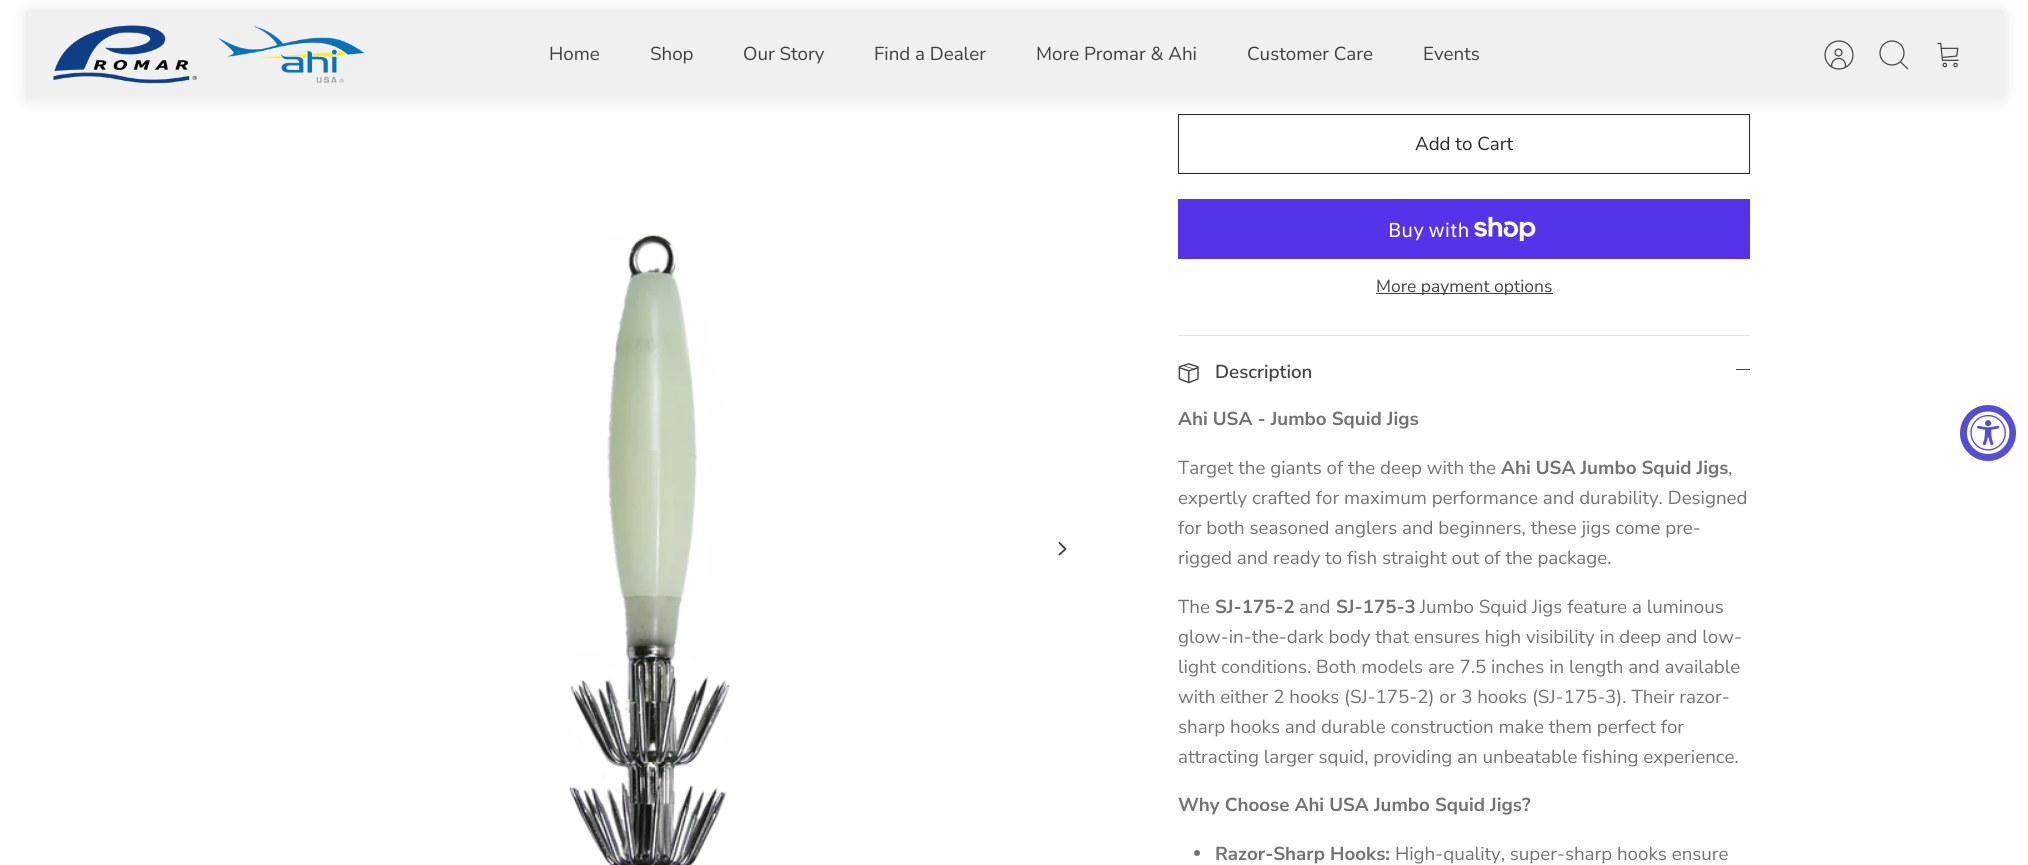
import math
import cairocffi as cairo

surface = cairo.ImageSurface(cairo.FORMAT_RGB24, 2028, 865)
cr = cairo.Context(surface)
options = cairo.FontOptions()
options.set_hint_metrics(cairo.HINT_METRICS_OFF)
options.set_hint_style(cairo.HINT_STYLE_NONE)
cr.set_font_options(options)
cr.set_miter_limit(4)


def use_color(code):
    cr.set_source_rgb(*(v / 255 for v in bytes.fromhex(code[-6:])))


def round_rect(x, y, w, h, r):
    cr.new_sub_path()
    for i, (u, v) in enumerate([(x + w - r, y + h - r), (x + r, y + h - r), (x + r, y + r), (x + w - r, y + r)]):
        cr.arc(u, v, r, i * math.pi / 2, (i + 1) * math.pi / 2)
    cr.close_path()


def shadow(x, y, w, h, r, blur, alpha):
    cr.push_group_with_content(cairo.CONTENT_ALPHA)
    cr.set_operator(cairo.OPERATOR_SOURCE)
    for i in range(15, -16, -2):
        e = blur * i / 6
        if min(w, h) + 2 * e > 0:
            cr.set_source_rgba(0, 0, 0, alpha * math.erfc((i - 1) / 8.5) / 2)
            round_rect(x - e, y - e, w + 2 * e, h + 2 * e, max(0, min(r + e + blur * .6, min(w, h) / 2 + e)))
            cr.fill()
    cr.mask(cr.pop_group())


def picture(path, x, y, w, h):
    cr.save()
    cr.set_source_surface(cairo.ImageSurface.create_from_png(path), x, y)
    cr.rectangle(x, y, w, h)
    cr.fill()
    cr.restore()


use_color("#ffffff")
cr.paint()
cr.rectangle(1178.5, 114.5, 571, 59)
use_color("#282828")
cr.set_line_width(1)
cr.stroke()
use_color("#000000")
shadow(26, 11, 1979, 89, 4, 7.5, 0.1)
use_color("#f0f0f0")
round_rect(25, 10, 1979, 89, 4)
cr.fill()
picture("img1.png", 53, 25, 312, 59)
cr.select_font_face("Nunito Sans")
cr.set_font_size(18.75)
use_color("#3c4043")
cr.move_to(549, 60)
cr.show_text("Home")
cr.move_to(650, 60)
cr.show_text("Shop")
cr.move_to(743, 60)
cr.show_text("Our Story")
cr.move_to(874, 60)
cr.show_text("Find a Dealer")
cr.move_to(1036, 60)
cr.show_text("More Promar & Ahi")
cr.move_to(1247, 60)
cr.show_text("Customer Care")
cr.move_to(1423, 60)
cr.show_text("Events")
picture("img2.png", 1824, 40, 30, 30)
cr.arc(1892, 53, 12, 0, 2 * math.pi)
cr.set_line_width(1.2)
cr.stroke()
cr.new_path()
cr.move_to(1900.5, 62)
cr.line_to(1907.5, 68.5)
cr.set_line_cap(cairo.LINE_CAP_SQUARE)
cr.stroke()
picture("img3.png", 1937, 42, 22, 26)
picture("img4.png", 569, 234, 161, 631)
cr.new_path()
cr.move_to(1059.5, 554.5)
cr.line_to(1065.5, 549)
cr.line_to(1059.5, 543)
use_color("#434343")
cr.set_line_width(1.9)
cr.set_line_cap(cairo.LINE_CAP_ROUND)
cr.set_line_join(cairo.LINE_JOIN_ROUND)
cr.stroke()
use_color("#282828")
cr.move_to(1415, 150)
cr.show_text("Add to Cart")
use_color("#5433eb")
cr.rectangle(1178, 199, 572, 60)
cr.fill()
cr.select_font_face("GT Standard")
cr.set_font_size(20)
use_color("#ffffff")
cr.move_to(1388, 237)
cr.show_text("Buy with")
picture("img5.png", 1474, 216, 62, 25)
use_color("#434343")
cr.rectangle(1376, 293, 177, 1)
cr.fill()
cr.select_font_face("Nunito Sans")
cr.set_font_size(17.5)
cr.move_to(1376, 292)
cr.show_text("More payment options")
use_color("#e3e3e3")
cr.rectangle(1178, 335, 572, 1)
cr.fill()
picture("img6.png", 1178, 363, 21, 21)
cr.select_font_face("Nunito Sans SemiBold")
cr.set_font_size(18.75)
use_color("#434343")
cr.move_to(1215, 378)
cr.show_text("Description")
cr.rectangle(1736, 369, 14, 1)
cr.fill()
cr.select_font_face("Nunito Sans", cairo.FONT_SLANT_NORMAL, cairo.FONT_WEIGHT_BOLD)
use_color("#727272")
cr.move_to(1178, 425)
cr.show_text("Ahi USA - Jumbo Squid Jigs")
cr.select_font_face("Nunito Sans")
cr.move_to(1178, 474)
cr.show_text("Target the giants of the deep with the")
cr.select_font_face("Nunito Sans", cairo.FONT_SLANT_NORMAL, cairo.FONT_WEIGHT_BOLD)
cr.move_to(1501, 474)
cr.show_text("Ahi USA Jumbo Squid Jigs")
cr.select_font_face("Nunito Sans")
cr.move_to(1728, 474)
cr.show_text(",")
cr.move_to(1178, 504)
cr.show_text("expertly crafted for maximum performance and durability. Designed")
cr.move_to(1178, 534)
cr.show_text("for both seasoned anglers and beginners, these jigs come pre-")
cr.move_to(1178, 564)
cr.show_text("rigged and ready to fish straight out of the package.")
cr.move_to(1178, 613)
cr.show_text("The")
cr.select_font_face("Nunito Sans", cairo.FONT_SLANT_NORMAL, cairo.FONT_WEIGHT_BOLD)
cr.move_to(1215, 613)
cr.show_text("SJ-175-2")
cr.select_font_face("Nunito Sans")
cr.move_to(1299, 613)
cr.show_text("and")
cr.select_font_face("Nunito Sans", cairo.FONT_SLANT_NORMAL, cairo.FONT_WEIGHT_BOLD)
cr.move_to(1336, 613)
cr.show_text("SJ-175-3")
cr.select_font_face("Nunito Sans")
cr.move_to(1420, 613)
cr.show_text("Jumbo Squid Jigs feature a luminous")
cr.move_to(1178, 643)
cr.show_text("glow-in-the-dark body that ensures high visibility in deep and low-")
cr.move_to(1178, 673)
cr.show_text("light conditions. Both models are 7.5 inches in length and available")
cr.move_to(1178, 703)
cr.show_text("with either 2 hooks (SJ-175-2) or 3 hooks (SJ-175-3). Their razor-")
cr.move_to(1178, 733)
cr.show_text("sharp hooks and durable construction make them perfect for")
cr.move_to(1178, 763)
cr.show_text("attracting larger squid, providing an unbeatable fishing experience.")
cr.select_font_face("Nunito Sans", cairo.FONT_SLANT_NORMAL, cairo.FONT_WEIGHT_BOLD)
cr.move_to(1178, 811)
cr.show_text("Why Choose Ahi USA Jumbo Squid Jigs?")
cr.new_path()
cr.arc(1197, 853, 3, 0, 2 * math.pi)
cr.fill()
cr.move_to(1215, 860)
cr.show_text("Razor-Sharp Hooks:")
cr.select_font_face("Nunito Sans")
cr.move_to(1395, 860)
cr.show_text("High-quality, super-sharp hooks ensure")
use_color("#574cd5")
cr.new_path()
cr.arc(1988, 433, 28, 0, 2 * math.pi)
cr.fill()
picture("img7.png", 1966, 411, 44, 43)
surface.write_to_png("result.png")
